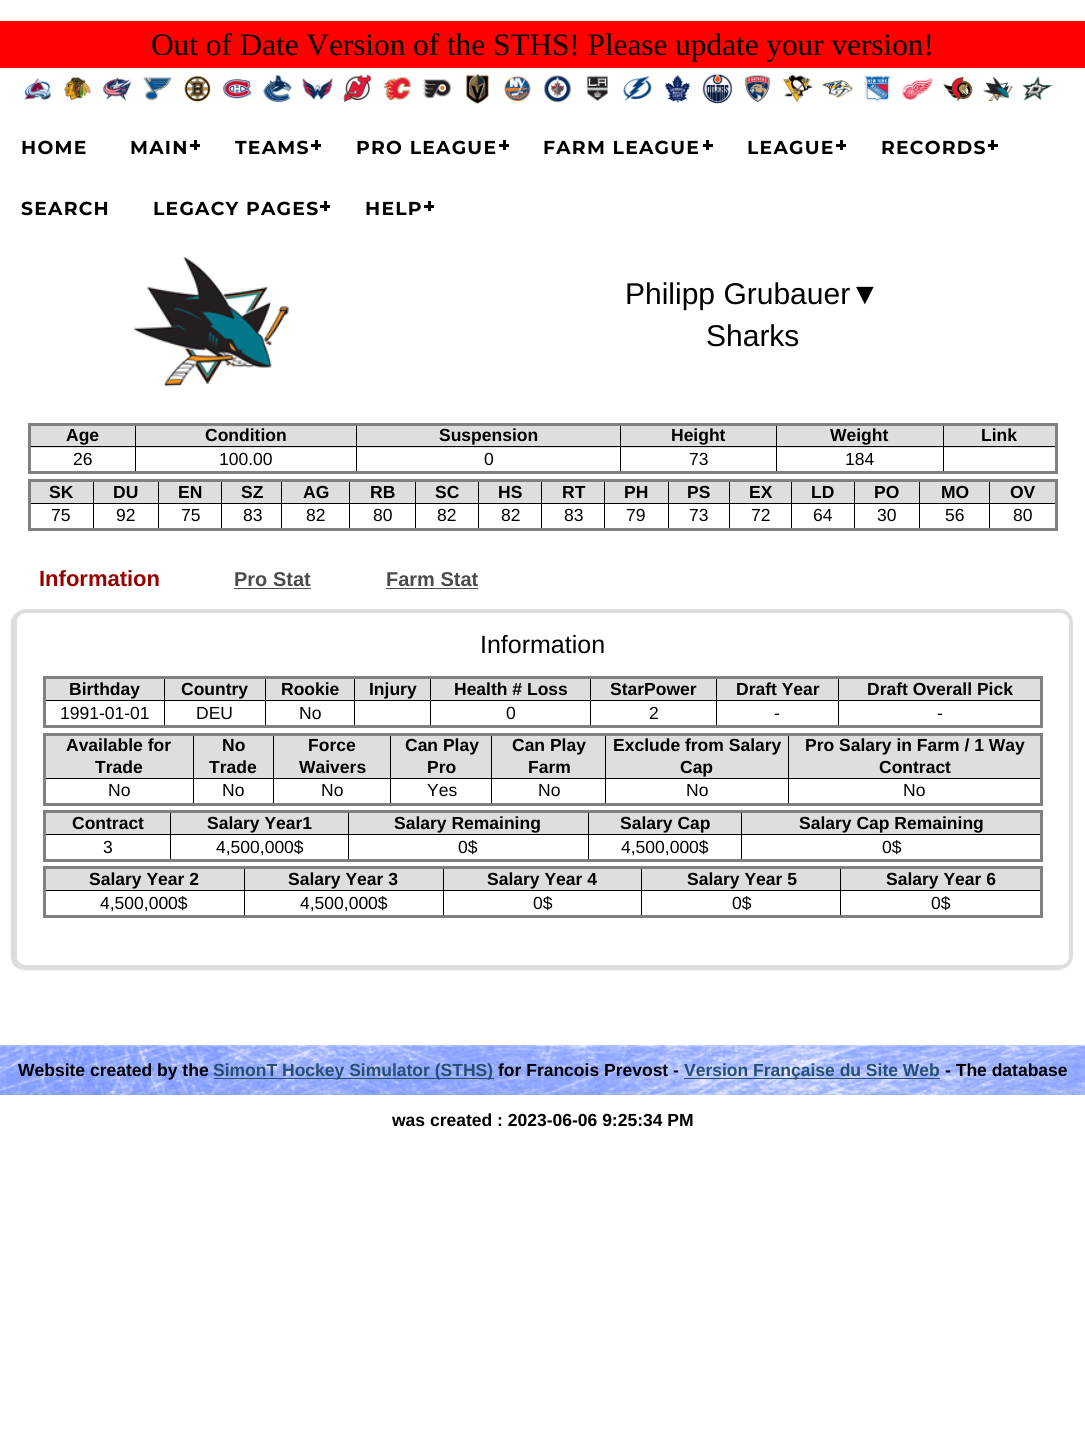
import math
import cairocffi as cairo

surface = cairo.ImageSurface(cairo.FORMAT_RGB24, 1085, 1455)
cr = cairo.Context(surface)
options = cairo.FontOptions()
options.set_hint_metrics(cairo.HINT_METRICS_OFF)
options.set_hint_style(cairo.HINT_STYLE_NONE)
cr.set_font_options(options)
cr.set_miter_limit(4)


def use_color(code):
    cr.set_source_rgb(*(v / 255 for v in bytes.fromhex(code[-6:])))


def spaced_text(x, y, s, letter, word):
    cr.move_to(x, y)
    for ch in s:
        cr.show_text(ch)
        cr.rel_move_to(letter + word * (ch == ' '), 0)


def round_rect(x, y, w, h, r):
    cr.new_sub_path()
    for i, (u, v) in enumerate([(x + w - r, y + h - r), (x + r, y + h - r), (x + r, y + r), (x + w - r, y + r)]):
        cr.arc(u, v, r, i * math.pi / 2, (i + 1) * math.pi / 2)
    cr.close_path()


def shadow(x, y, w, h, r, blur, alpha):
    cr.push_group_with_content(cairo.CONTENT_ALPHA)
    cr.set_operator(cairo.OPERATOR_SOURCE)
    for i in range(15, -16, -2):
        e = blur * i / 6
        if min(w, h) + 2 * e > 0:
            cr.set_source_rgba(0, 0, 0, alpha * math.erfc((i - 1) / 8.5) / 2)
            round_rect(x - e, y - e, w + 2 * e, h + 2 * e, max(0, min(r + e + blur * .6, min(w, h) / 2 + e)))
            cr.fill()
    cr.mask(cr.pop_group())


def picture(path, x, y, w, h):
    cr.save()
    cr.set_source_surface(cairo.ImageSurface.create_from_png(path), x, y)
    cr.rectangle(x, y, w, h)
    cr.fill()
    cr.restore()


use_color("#ffffff")
cr.paint()
use_color("#ff0000")
cr.rectangle(0, 21, 1085, 47)
cr.fill()
cr.select_font_face("Liberation Serif")
cr.set_font_size(31.25)
use_color("#000000")
cr.move_to(151, 55)
cr.show_text("Out of Date Version of the STHS! Please update your version!")
picture("img1.png", 24, 78, 27, 22)
picture("img2.png", 64, 77, 27, 23)
picture("img3.png", 102, 76, 30, 25)
picture("img4.png", 143, 77, 29, 23)
picture("img5.png", 184, 75, 27, 27)
picture("img6.png", 223, 79, 29, 20)
picture("img7.png", 263, 74, 29, 29)
picture("img8.png", 302, 78, 31, 22)
picture("img9.png", 343, 74, 29, 28)
picture("img10.png", 383, 77, 28, 23)
picture("img11.png", 423, 79, 29, 20)
picture("img12.png", 466, 73, 23, 31)
picture("img13.png", 504, 75, 27, 27)
picture("img14.png", 543, 75, 29, 28)
picture("img15.png", 586, 75, 22, 26)
picture("img16.png", 623, 75, 29, 27)
picture("img17.png", 664, 74, 27, 29)
picture("img18.png", 702, 73, 31, 31)
picture("img19.png", 745, 75, 25, 27)
picture("img20.png", 783, 74, 30, 28)
picture("img21.png", 822, 79, 31, 19)
picture("img22.png", 863, 75, 29, 27)
picture("img23.png", 902, 77, 31, 23)
picture("img24.png", 943, 77, 30, 24)
picture("img25.png", 983, 76, 30, 26)
picture("img26.png", 1022, 76, 31, 25)
cr.select_font_face("Montserrat", cairo.FONT_SLANT_NORMAL, cairo.FONT_WEIGHT_BOLD)
cr.set_font_size(18.75)
spaced_text(21, 154, "HOME", 1.25, 0)
spaced_text(130, 154, "MAIN", 1.25, 0)
cr.rectangle(194, 140, 3, 10)
cr.fill()
cr.rectangle(190, 144, 10, 3)
cr.fill()
spaced_text(235, 154, "TEAMS", 1.25, 0)
cr.rectangle(315, 140, 3, 10)
cr.fill()
cr.rectangle(311, 144, 10, 3)
cr.fill()
spaced_text(356, 154, "PRO LEAGUE", 1.25, 0)
cr.rectangle(503, 140, 3, 10)
cr.fill()
cr.rectangle(499, 144, 10, 3)
cr.fill()
spaced_text(543, 154, "FARM LEAGUE", 1.25, 0)
cr.rectangle(706, 140, 3, 10)
cr.fill()
cr.rectangle(703, 144, 10, 3)
cr.fill()
spaced_text(747, 154, "LEAGUE", 1.25, 0)
cr.rectangle(840, 140, 3, 10)
cr.fill()
cr.rectangle(836, 144, 10, 3)
cr.fill()
spaced_text(881, 154, "RECORDS", 1.25, 0)
cr.rectangle(991, 140, 3, 10)
cr.fill()
cr.rectangle(988, 144, 10, 3)
cr.fill()
spaced_text(21, 215, "SEARCH", 1.25, 0)
spaced_text(153, 215, "LEGACY PAGES", 1.25, 0)
cr.rectangle(324, 201, 3, 10)
cr.fill()
cr.rectangle(320, 205, 10, 3)
cr.fill()
spaced_text(365, 215, "HELP", 1.25, 0)
cr.rectangle(428, 201, 3, 10)
cr.fill()
cr.rectangle(424, 205, 10, 3)
cr.fill()
picture("img27.png", 133, 256, 156, 131)
cr.select_font_face("Liberation Sans")
cr.set_font_size(30)
cr.move_to(625, 304)
cr.show_text("Philipp Grubauer")
cr.move_to(850, 304)
cr.show_text("▼")
cr.move_to(706, 346)
cr.show_text("Sharks")
use_color("#dedede")
cr.rectangle(31, 426, 104, 22)
cr.fill()
cr.rectangle(136, 426, 484, 22)
cr.fill()
cr.rectangle(621, 426, 155, 22)
cr.fill()
cr.rectangle(777, 426, 166, 22)
cr.fill()
cr.rectangle(944, 426, 111, 22)
cr.fill()
use_color("#000000")
cr.rectangle(943, 446, 115, 1)
cr.fill()
cr.rectangle(943, 446, 1, 28)
cr.fill()
cr.rectangle(776, 446, 168, 1)
cr.fill()
cr.rectangle(776, 446, 1, 28)
cr.fill()
cr.rectangle(620, 446, 158, 1)
cr.fill()
cr.rectangle(620, 446, 1, 28)
cr.fill()
cr.rectangle(356, 446, 265, 1)
cr.fill()
cr.rectangle(356, 446, 1, 28)
cr.fill()
cr.rectangle(135, 446, 223, 1)
cr.fill()
cr.rectangle(135, 446, 1, 28)
cr.fill()
cr.rectangle(28, 446, 108, 1)
cr.fill()
cr.rectangle(135, 424, 1, 24)
cr.fill()
cr.rectangle(356, 424, 1, 24)
cr.fill()
cr.rectangle(620, 424, 1, 24)
cr.fill()
cr.rectangle(776, 424, 1, 24)
cr.fill()
cr.rectangle(943, 424, 1, 24)
cr.fill()
use_color("#808080")
cr.rectangle(28, 423, 1030, 3)
cr.fill()
cr.rectangle(1055, 423, 3, 51)
cr.fill()
cr.rectangle(28, 471, 1030, 3)
cr.fill()
cr.rectangle(28, 423, 3, 51)
cr.fill()
cr.select_font_face("Liberation Sans", cairo.FONT_SLANT_NORMAL, cairo.FONT_WEIGHT_BOLD)
cr.set_font_size(17.5)
use_color("#000000")
cr.move_to(66, 441)
cr.show_text("Age")
cr.move_to(205, 441)
cr.show_text("Condition")
cr.move_to(439, 441)
cr.show_text("Suspension")
cr.move_to(671, 441)
cr.show_text("Height")
cr.move_to(830, 441)
cr.show_text("Weight")
cr.move_to(981, 441)
cr.show_text("Link")
cr.select_font_face("Liberation Sans")
cr.move_to(73, 465)
cr.show_text("26")
cr.move_to(219, 465)
cr.show_text("100.00")
cr.move_to(484, 465)
cr.show_text("0")
cr.move_to(689, 465)
cr.show_text("73")
cr.move_to(845, 465)
cr.show_text("184")
cr.rectangle(989, 503, 69, 1)
cr.fill()
cr.rectangle(989, 503, 1, 27)
cr.fill()
cr.rectangle(919, 503, 71, 1)
cr.fill()
cr.rectangle(919, 503, 1, 27)
cr.fill()
cr.rectangle(854, 503, 66, 1)
cr.fill()
cr.rectangle(854, 503, 1, 27)
cr.fill()
cr.rectangle(791, 503, 64, 1)
cr.fill()
cr.rectangle(791, 503, 1, 27)
cr.fill()
cr.rectangle(729, 503, 64, 1)
cr.fill()
cr.rectangle(729, 503, 1, 27)
cr.fill()
cr.rectangle(668, 503, 62, 1)
cr.fill()
cr.rectangle(668, 503, 1, 27)
cr.fill()
cr.rectangle(604, 503, 65, 1)
cr.fill()
cr.rectangle(604, 503, 1, 27)
cr.fill()
cr.rectangle(541, 503, 64, 1)
cr.fill()
cr.rectangle(541, 503, 1, 27)
cr.fill()
cr.rectangle(478, 503, 65, 1)
cr.fill()
cr.rectangle(478, 503, 1, 27)
cr.fill()
cr.rectangle(415, 503, 64, 1)
cr.fill()
cr.rectangle(415, 503, 1, 27)
cr.fill()
cr.rectangle(349, 503, 67, 1)
cr.fill()
cr.rectangle(349, 503, 1, 27)
cr.fill()
cr.rectangle(281, 503, 69, 1)
cr.fill()
cr.rectangle(281, 503, 1, 27)
cr.fill()
cr.rectangle(221, 503, 62, 1)
cr.fill()
cr.rectangle(221, 503, 1, 27)
cr.fill()
cr.rectangle(158, 503, 65, 1)
cr.fill()
cr.rectangle(158, 503, 1, 27)
cr.fill()
cr.rectangle(93, 503, 66, 1)
cr.fill()
cr.rectangle(93, 503, 1, 27)
cr.fill()
cr.rectangle(28, 503, 66, 1)
cr.fill()
cr.rectangle(93, 480, 1, 24)
cr.fill()
cr.rectangle(158, 480, 1, 24)
cr.fill()
use_color("#dedede")
cr.rectangle(159, 482, 190, 21)
cr.fill()
use_color("#000000")
cr.rectangle(221, 480, 1, 24)
cr.fill()
cr.rectangle(281, 480, 1, 24)
cr.fill()
cr.rectangle(349, 480, 1, 24)
cr.fill()
cr.rectangle(415, 480, 1, 24)
cr.fill()
cr.rectangle(478, 480, 1, 24)
cr.fill()
use_color("#dedede")
cr.rectangle(479, 482, 125, 21)
cr.fill()
use_color("#000000")
cr.rectangle(541, 480, 1, 24)
cr.fill()
cr.rectangle(604, 480, 1, 24)
cr.fill()
cr.rectangle(668, 480, 1, 24)
cr.fill()
cr.rectangle(729, 480, 1, 24)
cr.fill()
use_color("#dedede")
cr.rectangle(730, 482, 124, 21)
cr.fill()
use_color("#000000")
cr.rectangle(791, 480, 1, 24)
cr.fill()
cr.rectangle(854, 480, 1, 24)
cr.fill()
cr.rectangle(919, 480, 1, 24)
cr.fill()
cr.rectangle(989, 480, 1, 24)
cr.fill()
use_color("#808080")
cr.rectangle(28, 479, 1030, 3)
cr.fill()
cr.rectangle(1055, 479, 3, 51)
cr.fill()
cr.rectangle(28, 528, 1030, 3)
cr.fill()
cr.rectangle(28, 479, 3, 51)
cr.fill()
use_color("#dedede")
cr.rectangle(31, 482, 62, 21)
cr.fill()
cr.select_font_face("Liberation Sans", cairo.FONT_SLANT_NORMAL, cairo.FONT_WEIGHT_BOLD)
use_color("#000000")
cr.move_to(49, 498)
cr.show_text("SK")
use_color("#dedede")
cr.rectangle(94, 482, 64, 21)
cr.fill()
use_color("#000000")
cr.move_to(113, 498)
cr.show_text("DU")
cr.move_to(178, 498)
cr.show_text("EN")
cr.move_to(241, 498)
cr.show_text("SZ")
cr.move_to(303, 498)
cr.show_text("AG")
use_color("#dedede")
cr.rectangle(350, 482, 65, 21)
cr.fill()
use_color("#000000")
cr.move_to(370, 498)
cr.show_text("RB")
use_color("#dedede")
cr.rectangle(416, 482, 62, 21)
cr.fill()
use_color("#000000")
cr.move_to(435, 498)
cr.show_text("SC")
cr.move_to(498, 498)
cr.show_text("HS")
cr.move_to(562, 498)
cr.show_text("RT")
use_color("#dedede")
cr.rectangle(605, 482, 63, 21)
cr.fill()
use_color("#000000")
cr.move_to(624, 498)
cr.show_text("PH")
use_color("#dedede")
cr.rectangle(669, 482, 60, 21)
cr.fill()
use_color("#000000")
cr.move_to(687, 498)
cr.show_text("PS")
cr.move_to(749, 498)
cr.show_text("EX")
cr.move_to(811, 498)
cr.show_text("LD")
use_color("#dedede")
cr.rectangle(855, 482, 64, 21)
cr.fill()
use_color("#000000")
cr.move_to(874, 498)
cr.show_text("PO")
use_color("#dedede")
cr.rectangle(920, 482, 69, 21)
cr.fill()
use_color("#000000")
cr.move_to(941, 498)
cr.show_text("MO")
use_color("#dedede")
cr.rectangle(990, 482, 65, 21)
cr.fill()
use_color("#000000")
cr.move_to(1010, 498)
cr.show_text("OV")
cr.select_font_face("Liberation Sans")
cr.move_to(51, 521)
cr.show_text("75")
cr.move_to(116, 521)
cr.show_text("92")
cr.move_to(181, 521)
cr.show_text("75")
cr.move_to(243, 521)
cr.show_text("83")
cr.move_to(306, 521)
cr.show_text("82")
cr.move_to(373, 521)
cr.show_text("80")
cr.move_to(437, 521)
cr.show_text("82")
cr.move_to(501, 521)
cr.show_text("82")
cr.move_to(564, 521)
cr.show_text("83")
cr.move_to(626, 521)
cr.show_text("79")
cr.move_to(689, 521)
cr.show_text("73")
cr.move_to(751, 521)
cr.show_text("72")
cr.move_to(813, 521)
cr.show_text("64")
cr.move_to(877, 521)
cr.show_text("30")
cr.move_to(945, 521)
cr.show_text("56")
cr.move_to(1013, 521)
cr.show_text("80")
cr.select_font_face("Liberation Sans", cairo.FONT_SLANT_NORMAL, cairo.FONT_WEIGHT_BOLD)
cr.set_font_size(22)
use_color("#990000")
cr.move_to(39, 586)
cr.show_text("Information")
cr.set_font_size(20)
use_color("#4c4c4c")
cr.move_to(234, 586)
cr.show_text("Pro Stat")
cr.rectangle(234, 588, 77, 1)
cr.fill()
cr.move_to(386, 586)
cr.show_text("Farm Stat")
cr.rectangle(386, 588, 92, 1)
cr.fill()
cr.save()
cr.set_fill_rule(cairo.FILL_RULE_EVEN_ODD)
cr.new_path()
cr.move_to(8, 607)
cr.line_to(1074, 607)
cr.line_to(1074, 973)
cr.line_to(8, 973)
cr.close_path()
cr.move_to(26, 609)
cr.line_to(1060, 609)
cr.curve_to(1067, 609, 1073, 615, 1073, 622)
cr.line_to(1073, 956)
cr.curve_to(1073, 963, 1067, 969, 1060, 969)
cr.line_to(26, 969)
cr.curve_to(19, 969, 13, 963, 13, 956)
cr.line_to(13, 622)
cr.curve_to(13, 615, 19, 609, 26, 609)
cr.close_path()
cr.clip()
use_color("#000000")
shadow(11, 610, 1060, 360, 13, 0.5, 0.15)
cr.restore()
round_rect(15, 611, 1056, 356, 11)
use_color("#dedede")
cr.set_line_width(4)
cr.stroke()
cr.select_font_face("Liberation Sans")
cr.set_font_size(25)
use_color("#000000")
cr.move_to(480, 653)
cr.show_text("Information")
cr.rectangle(838, 700, 203, 1)
cr.fill()
cr.rectangle(838, 700, 1, 28)
cr.fill()
cr.rectangle(716, 700, 123, 1)
cr.fill()
cr.rectangle(716, 700, 1, 28)
cr.fill()
cr.rectangle(590, 700, 128, 1)
cr.fill()
cr.rectangle(590, 700, 1, 28)
cr.fill()
cr.rectangle(430, 700, 161, 1)
cr.fill()
cr.rectangle(430, 700, 1, 28)
cr.fill()
cr.rectangle(354, 700, 77, 1)
cr.fill()
cr.rectangle(354, 700, 1, 28)
cr.fill()
cr.rectangle(265, 700, 90, 1)
cr.fill()
cr.rectangle(265, 700, 1, 28)
cr.fill()
cr.rectangle(164, 700, 102, 1)
cr.fill()
cr.rectangle(164, 700, 1, 28)
cr.fill()
cr.rectangle(44, 700, 121, 1)
cr.fill()
cr.rectangle(164, 678, 1, 23)
cr.fill()
cr.rectangle(265, 678, 1, 23)
cr.fill()
cr.rectangle(354, 678, 1, 23)
cr.fill()
cr.rectangle(430, 678, 1, 23)
cr.fill()
cr.rectangle(590, 678, 1, 23)
cr.fill()
cr.rectangle(716, 678, 1, 23)
cr.fill()
cr.rectangle(838, 678, 1, 23)
cr.fill()
use_color("#808080")
cr.rectangle(43, 676, 1000, 3)
cr.fill()
cr.rectangle(1040, 676, 3, 52)
cr.fill()
cr.rectangle(43, 725, 1000, 3)
cr.fill()
cr.rectangle(43, 676, 3, 52)
cr.fill()
use_color("#dedede")
cr.rectangle(46, 679, 118, 21)
cr.fill()
cr.select_font_face("Liberation Sans", cairo.FONT_SLANT_NORMAL, cairo.FONT_WEIGHT_BOLD)
cr.set_font_size(17.5)
use_color("#000000")
cr.move_to(69, 695)
cr.show_text("Birthday")
use_color("#dedede")
cr.rectangle(165, 679, 100, 21)
cr.fill()
use_color("#000000")
cr.move_to(181, 695)
cr.show_text("Country")
use_color("#dedede")
cr.rectangle(266, 679, 88, 21)
cr.fill()
use_color("#000000")
cr.move_to(281, 695)
cr.show_text("Rookie")
use_color("#dedede")
cr.rectangle(355, 679, 75, 21)
cr.fill()
use_color("#000000")
cr.move_to(369, 695)
cr.show_text("Injury")
use_color("#dedede")
cr.rectangle(431, 679, 159, 21)
cr.fill()
use_color("#000000")
cr.move_to(454, 695)
cr.show_text("Health # Loss")
use_color("#dedede")
cr.rectangle(591, 679, 125, 21)
cr.fill()
use_color("#000000")
cr.move_to(610, 695)
cr.show_text("StarPower")
use_color("#dedede")
cr.rectangle(717, 679, 121, 21)
cr.fill()
use_color("#000000")
cr.move_to(736, 695)
cr.show_text("Draft Year")
use_color("#dedede")
cr.rectangle(839, 679, 201, 21)
cr.fill()
use_color("#000000")
cr.move_to(867, 695)
cr.show_text("Draft Overall Pick")
cr.select_font_face("Liberation Sans")
cr.move_to(60, 719)
cr.show_text("1991-01-01")
cr.move_to(196, 719)
cr.show_text("DEU")
cr.move_to(299, 719)
cr.show_text("No")
cr.move_to(506, 719)
cr.show_text("0")
cr.move_to(649, 719)
cr.show_text("2")
cr.move_to(774, 719)
cr.show_text("-")
cr.move_to(937, 719)
cr.show_text("-")
cr.rectangle(788, 778, 253, 1)
cr.fill()
cr.rectangle(788, 778, 1, 27)
cr.fill()
cr.rectangle(605, 778, 184, 1)
cr.fill()
cr.rectangle(605, 778, 1, 27)
cr.fill()
cr.rectangle(491, 778, 115, 1)
cr.fill()
cr.rectangle(491, 778, 1, 27)
cr.fill()
cr.rectangle(390, 778, 103, 1)
cr.fill()
cr.rectangle(390, 778, 1, 27)
cr.fill()
cr.rectangle(273, 778, 118, 1)
cr.fill()
cr.rectangle(273, 778, 1, 27)
cr.fill()
cr.rectangle(193, 778, 81, 1)
cr.fill()
cr.rectangle(193, 778, 1, 27)
cr.fill()
cr.rectangle(44, 778, 150, 1)
cr.fill()
cr.rectangle(193, 734, 1, 45)
cr.fill()
cr.rectangle(273, 734, 1, 45)
cr.fill()
cr.rectangle(390, 734, 1, 45)
cr.fill()
use_color("#dedede")
cr.rectangle(391, 736, 214, 42)
cr.fill()
use_color("#000000")
cr.rectangle(491, 734, 1, 45)
cr.fill()
cr.rectangle(605, 734, 1, 45)
cr.fill()
cr.rectangle(788, 734, 1, 45)
cr.fill()
use_color("#808080")
cr.rectangle(43, 733, 1000, 3)
cr.fill()
cr.rectangle(1040, 733, 3, 72)
cr.fill()
cr.rectangle(43, 803, 1000, 3)
cr.fill()
cr.rectangle(43, 733, 3, 72)
cr.fill()
use_color("#dedede")
cr.rectangle(46, 736, 147, 42)
cr.fill()
cr.select_font_face("Liberation Sans", cairo.FONT_SLANT_NORMAL, cairo.FONT_WEIGHT_BOLD)
use_color("#000000")
cr.move_to(66, 751)
cr.show_text("Available for")
cr.move_to(95, 773)
cr.show_text("Trade")
use_color("#dedede")
cr.rectangle(194, 736, 79, 42)
cr.fill()
use_color("#000000")
cr.move_to(222, 751)
cr.show_text("No")
cr.move_to(209, 773)
cr.show_text("Trade")
use_color("#dedede")
cr.rectangle(274, 736, 116, 42)
cr.fill()
use_color("#000000")
cr.move_to(308, 751)
cr.show_text("Force")
cr.move_to(299, 773)
cr.show_text("Waivers")
cr.move_to(405, 751)
cr.show_text("Can Play")
cr.move_to(427, 773)
cr.show_text("Pro")
cr.move_to(512, 751)
cr.show_text("Can Play")
cr.move_to(528, 773)
cr.show_text("Farm")
use_color("#dedede")
cr.rectangle(606, 736, 182, 42)
cr.fill()
use_color("#000000")
cr.move_to(613, 751)
cr.show_text("Exclude from Salary")
cr.move_to(680, 773)
cr.show_text("Cap")
use_color("#dedede")
cr.rectangle(789, 736, 251, 42)
cr.fill()
use_color("#000000")
cr.move_to(805, 751)
cr.show_text("Pro Salary in Farm / 1 Way")
cr.move_to(879, 773)
cr.show_text("Contract")
cr.select_font_face("Liberation Sans")
cr.move_to(108, 796)
cr.show_text("No")
cr.move_to(222, 796)
cr.show_text("No")
cr.move_to(321, 796)
cr.show_text("No")
cr.move_to(427, 796)
cr.show_text("Yes")
cr.move_to(538, 796)
cr.show_text("No")
cr.move_to(686, 796)
cr.show_text("No")
cr.move_to(903, 796)
cr.show_text("No")
cr.rectangle(741, 834, 300, 1)
cr.fill()
cr.rectangle(741, 834, 1, 27)
cr.fill()
cr.rectangle(588, 834, 155, 1)
cr.fill()
cr.rectangle(588, 834, 1, 27)
cr.fill()
cr.rectangle(348, 834, 241, 1)
cr.fill()
cr.rectangle(348, 834, 1, 27)
cr.fill()
cr.rectangle(170, 834, 179, 1)
cr.fill()
cr.rectangle(170, 834, 1, 27)
cr.fill()
cr.rectangle(44, 834, 127, 1)
cr.fill()
cr.rectangle(170, 811, 1, 24)
cr.fill()
cr.rectangle(348, 811, 1, 24)
cr.fill()
cr.rectangle(588, 811, 1, 24)
cr.fill()
use_color("#dedede")
cr.rectangle(589, 813, 451, 21)
cr.fill()
use_color("#000000")
cr.rectangle(741, 811, 1, 24)
cr.fill()
use_color("#808080")
cr.rectangle(43, 810, 1000, 3)
cr.fill()
cr.rectangle(1040, 810, 3, 51)
cr.fill()
cr.rectangle(43, 859, 1000, 3)
cr.fill()
cr.rectangle(43, 810, 3, 51)
cr.fill()
use_color("#dedede")
cr.rectangle(46, 813, 124, 21)
cr.fill()
cr.select_font_face("Liberation Sans", cairo.FONT_SLANT_NORMAL, cairo.FONT_WEIGHT_BOLD)
use_color("#000000")
cr.move_to(72, 829)
cr.show_text("Contract")
use_color("#dedede")
cr.rectangle(171, 813, 177, 21)
cr.fill()
use_color("#000000")
cr.move_to(207, 829)
cr.show_text("Salary Year1")
use_color("#dedede")
cr.rectangle(349, 813, 239, 21)
cr.fill()
use_color("#000000")
cr.move_to(394, 829)
cr.show_text("Salary Remaining")
cr.move_to(620, 829)
cr.show_text("Salary Cap")
cr.move_to(799, 829)
cr.show_text("Salary Cap Remaining")
cr.select_font_face("Liberation Sans")
cr.move_to(103, 853)
cr.show_text("3")
cr.move_to(216, 853)
cr.show_text("4,500,000$")
cr.move_to(458, 853)
cr.show_text("0$")
cr.move_to(621, 853)
cr.show_text("4,500,000$")
cr.move_to(882, 853)
cr.show_text("0$")
cr.rectangle(840, 890, 201, 1)
cr.fill()
cr.rectangle(840, 890, 1, 28)
cr.fill()
cr.rectangle(641, 890, 200, 1)
cr.fill()
cr.rectangle(641, 890, 1, 28)
cr.fill()
cr.rectangle(443, 890, 200, 1)
cr.fill()
cr.rectangle(443, 890, 1, 28)
cr.fill()
cr.rectangle(244, 890, 200, 1)
cr.fill()
cr.rectangle(244, 890, 1, 28)
cr.fill()
cr.rectangle(44, 890, 201, 1)
cr.fill()
cr.rectangle(244, 868, 1, 23)
cr.fill()
cr.rectangle(443, 868, 1, 23)
cr.fill()
use_color("#dedede")
cr.rectangle(444, 869, 396, 21)
cr.fill()
use_color("#000000")
cr.rectangle(641, 868, 1, 23)
cr.fill()
cr.rectangle(840, 868, 1, 23)
cr.fill()
use_color("#808080")
cr.rectangle(43, 866, 1000, 3)
cr.fill()
cr.rectangle(1040, 866, 3, 52)
cr.fill()
cr.rectangle(43, 915, 1000, 3)
cr.fill()
cr.rectangle(43, 866, 3, 52)
cr.fill()
use_color("#dedede")
cr.rectangle(46, 869, 198, 21)
cr.fill()
cr.select_font_face("Liberation Sans", cairo.FONT_SLANT_NORMAL, cairo.FONT_WEIGHT_BOLD)
use_color("#000000")
cr.move_to(89, 885)
cr.show_text("Salary Year 2")
use_color("#dedede")
cr.rectangle(245, 869, 198, 21)
cr.fill()
use_color("#000000")
cr.move_to(288, 885)
cr.show_text("Salary Year 3")
cr.move_to(487, 885)
cr.show_text("Salary Year 4")
cr.move_to(687, 885)
cr.show_text("Salary Year 5")
use_color("#dedede")
cr.rectangle(841, 869, 199, 21)
cr.fill()
use_color("#000000")
cr.move_to(886, 885)
cr.show_text("Salary Year 6")
cr.select_font_face("Liberation Sans")
cr.move_to(100, 909)
cr.show_text("4,500,000$")
cr.move_to(300, 909)
cr.show_text("4,500,000$")
cr.move_to(533, 909)
cr.show_text("0$")
cr.move_to(732, 909)
cr.show_text("0$")
cr.move_to(931, 909)
cr.show_text("0$")
picture("img28.png", 0, 1045, 1085, 50)
cr.select_font_face("Liberation Sans", cairo.FONT_SLANT_NORMAL, cairo.FONT_WEIGHT_BOLD)
cr.move_to(18, 1076)
cr.show_text("Website created by the")
use_color("#274f70")
cr.rectangle(214, 1078, 280, 1)
cr.fill()
cr.move_to(213, 1076)
cr.show_text("SimonT Hockey Simulator (STHS)")
use_color("#000000")
cr.move_to(498, 1076)
cr.show_text("for Francois Prevost -")
use_color("#274f70")
cr.rectangle(684, 1078, 256, 1)
cr.fill()
cr.move_to(684, 1076)
cr.show_text("Version Française du Site Web")
use_color("#000000")
cr.move_to(945, 1076)
cr.show_text("- The database")
cr.move_to(392, 1126)
cr.show_text("was created : 2023-06-06 9:25:34 PM")
surface.write_to_png("result.png")
